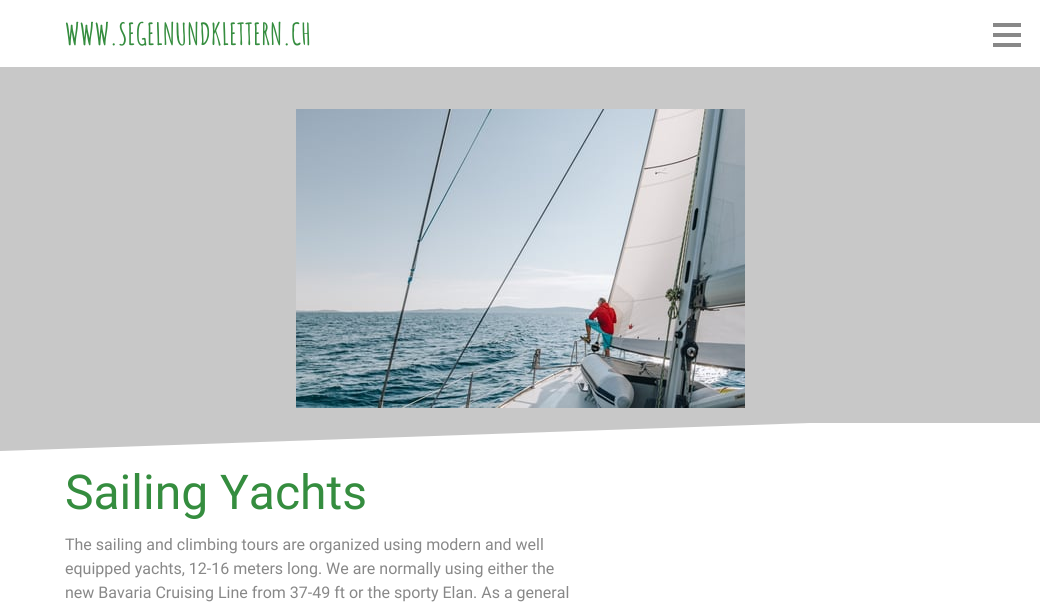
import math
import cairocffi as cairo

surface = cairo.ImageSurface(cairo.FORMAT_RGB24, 1040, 602)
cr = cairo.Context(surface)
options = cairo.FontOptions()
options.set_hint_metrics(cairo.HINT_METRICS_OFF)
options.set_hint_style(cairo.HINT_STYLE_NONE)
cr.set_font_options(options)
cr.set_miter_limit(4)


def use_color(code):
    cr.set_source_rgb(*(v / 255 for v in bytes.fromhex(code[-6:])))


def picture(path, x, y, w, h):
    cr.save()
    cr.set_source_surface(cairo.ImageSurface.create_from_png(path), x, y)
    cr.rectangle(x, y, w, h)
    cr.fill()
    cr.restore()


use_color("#ffffff")
cr.paint()
use_color("#c8c8c8")
cr.rectangle(0, 67, 1040, 384)
cr.fill()
cr.select_font_face("Amatic SC", cairo.FONT_SLANT_NORMAL, cairo.FONT_WEIGHT_BOLD)
cr.set_font_size(30)
use_color("#358d3f")
cr.move_to(65, 45)
cr.show_text("WWW.SEGELNUNDKLETTERN.CH")
use_color("#888888")
cr.rectangle(993, 23, 28, 4)
cr.fill()
cr.rectangle(993, 33, 28, 4)
cr.fill()
cr.rectangle(993, 43, 28, 4)
cr.fill()
picture("img1.png", 296, 109, 449, 299)
cr.save()
cr.rectangle(0, 423, 1040, 40)
cr.clip()
use_color("#ffffff")
cr.new_path()
cr.move_to(0, 451)
cr.line_to(1040, 415)
cr.line_to(1040, 515)
cr.line_to(0, 551)
cr.close_path()
cr.fill()
cr.restore()
cr.select_font_face("Roboto")
cr.set_font_size(48)
use_color("#358d3f")
cr.move_to(65, 509)
cr.show_text("Sailing Yachts")
cr.set_font_size(16)
use_color("#888888")
cr.move_to(65, 550)
cr.show_text("The sailing and climbing tours are organized using modern and well")
cr.move_to(65, 574)
cr.show_text("equipped yachts, 12-16 meters long. We are normally using either the")
cr.move_to(65, 598)
cr.show_text("new Bavaria Cruising Line from 37-49 ft or the sporty Elan. As a general")
surface.write_to_png("result.png")
